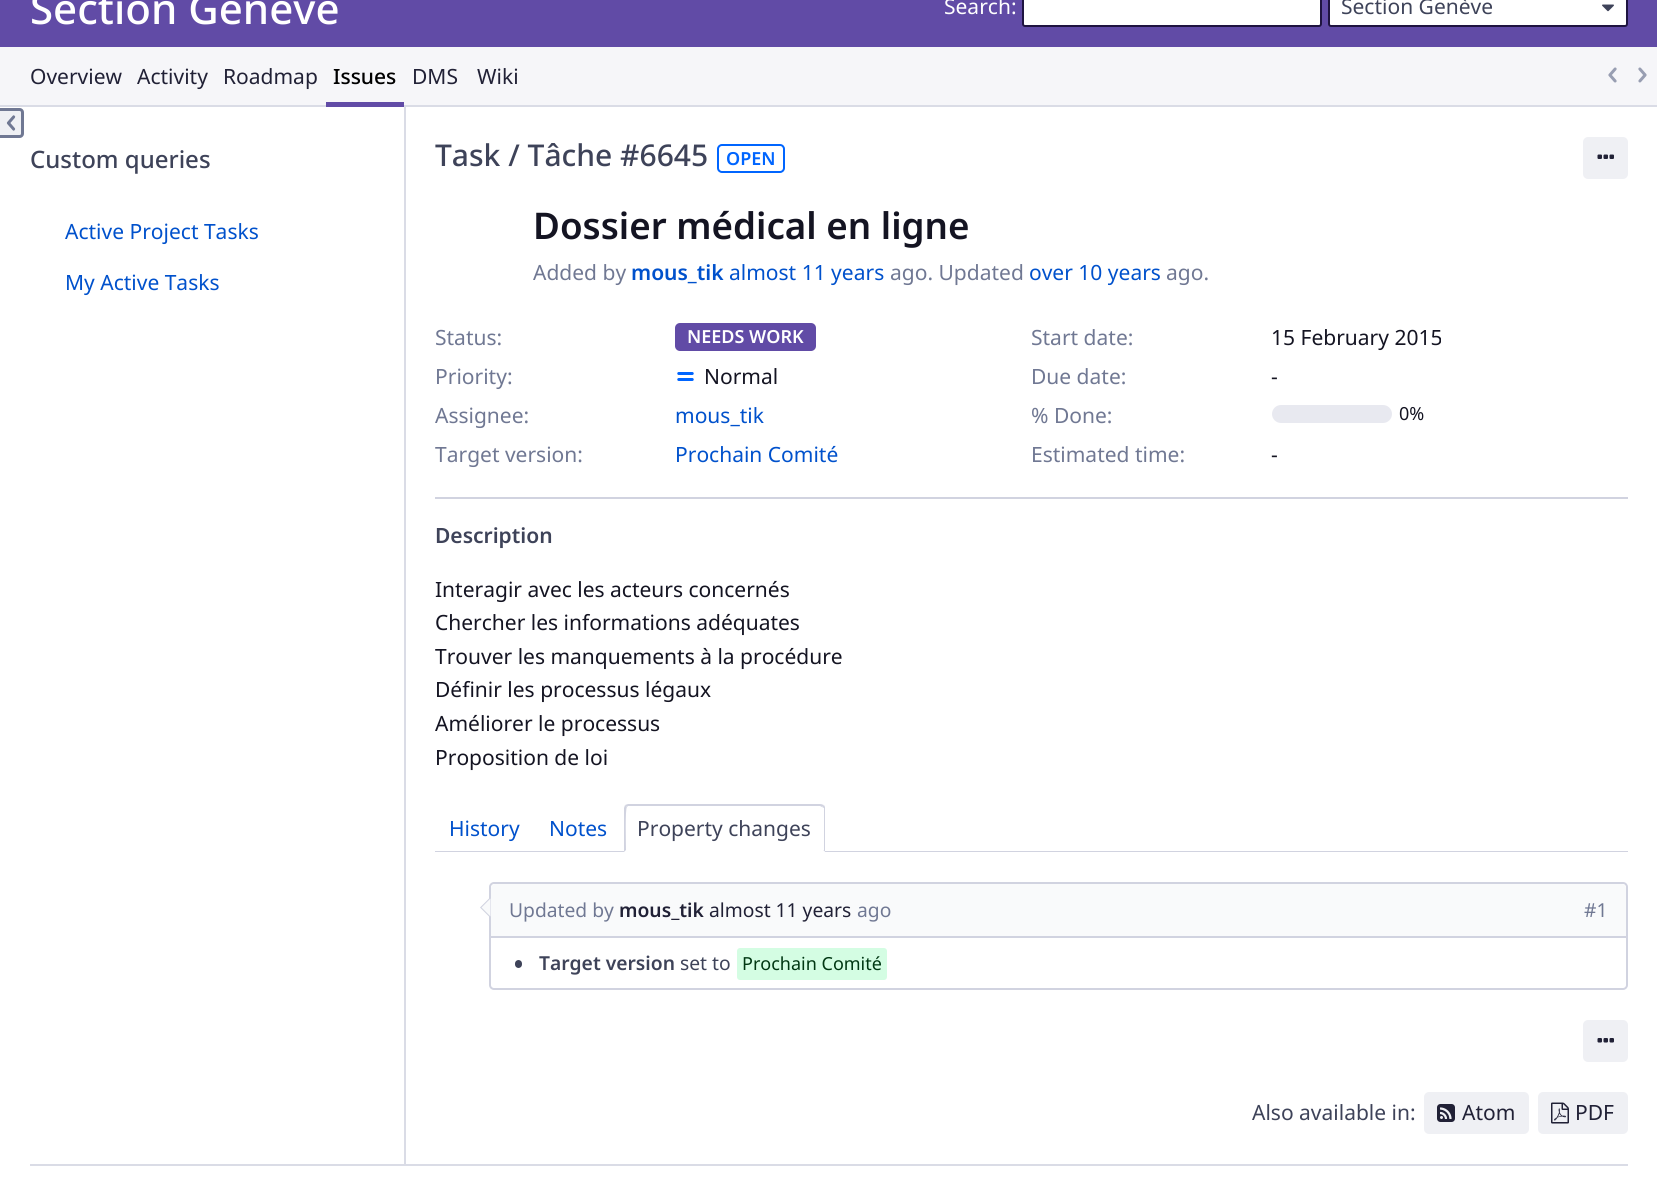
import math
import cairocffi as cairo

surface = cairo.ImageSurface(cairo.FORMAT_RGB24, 1657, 1196)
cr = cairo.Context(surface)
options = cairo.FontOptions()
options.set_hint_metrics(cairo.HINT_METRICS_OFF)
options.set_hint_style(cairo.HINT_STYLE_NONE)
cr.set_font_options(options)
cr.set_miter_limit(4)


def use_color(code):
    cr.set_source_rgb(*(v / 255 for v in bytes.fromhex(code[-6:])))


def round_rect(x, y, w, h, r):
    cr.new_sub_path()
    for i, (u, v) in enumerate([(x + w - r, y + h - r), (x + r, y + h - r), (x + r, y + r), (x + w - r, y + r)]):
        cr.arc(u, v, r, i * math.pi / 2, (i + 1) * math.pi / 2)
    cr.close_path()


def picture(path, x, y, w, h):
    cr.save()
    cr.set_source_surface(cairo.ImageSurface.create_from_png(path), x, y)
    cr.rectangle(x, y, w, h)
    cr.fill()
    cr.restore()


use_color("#ffffff")
cr.paint()
use_color("#614ba6")
cr.rectangle(0, 0, 1657, 47)
cr.fill()
cr.select_font_face("Noto Sans Medium")
cr.set_font_size(42)
use_color("#ffffff")
cr.move_to(30, 24)
cr.show_text("Section Genève")
cr.select_font_face("Noto Sans")
cr.set_font_size(21)
cr.move_to(944, 14)
cr.show_text("Search:")
round_rect(1023, -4, 298, 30, 2)
cr.fill_preserve()
use_color("#1f1440")
cr.stroke()
use_color("#ffffff")
round_rect(1329, -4, 298, 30, 2)
cr.fill_preserve()
use_color("#1f1440")
cr.stroke()
use_color("#3e4359")
cr.move_to(1341, 14)
cr.show_text("Section Genève")
picture("img1.png", 1602, 4, 12, 8)
use_color("#f6f6f9")
cr.rectangle(0, 47, 1657, 58)
cr.fill()
use_color("#dadce6")
cr.rectangle(0, 105, 1657, 2)
cr.fill()
use_color("#212136")
cr.move_to(30, 84)
cr.show_text("Overview")
cr.move_to(137, 84)
cr.show_text("Activity")
cr.move_to(223, 84)
cr.show_text("Roadmap")
use_color("#614ba6")
cr.rectangle(326, 102, 78, 5)
cr.fill()
cr.select_font_face("Noto Sans Medium")
use_color("#000000")
cr.move_to(333, 84)
cr.show_text("Issues")
cr.select_font_face("Noto Sans")
use_color("#212136")
cr.move_to(412, 84)
cr.show_text("DMS")
cr.move_to(477, 84)
cr.show_text("Wiki")
picture("img2.png", 1608, 67, 9, 16)
picture("img3.png", 1638, 67, 9, 16)
use_color("#eff0f4")
cr.new_path()
cr.move_to(0, 108)
cr.line_to(19, 108)
cr.curve_to(22, 108, 24, 110, 24, 113)
cr.line_to(24, 133)
cr.curve_to(24, 136, 22, 138, 19, 138)
cr.line_to(0, 138)
cr.close_path()
cr.fill()
picture("img4.png", 6, 115, 10, 16)
use_color("#707893")
cr.set_fill_rule(cairo.FILL_RULE_EVEN_ODD)
cr.new_path()
cr.move_to(0, 108)
cr.line_to(19.5, 108)
cr.curve_to(22, 108, 24, 110, 24, 112.5)
cr.line_to(24, 133.5)
cr.curve_to(24, 136, 22, 138, 19.5, 138)
cr.line_to(0, 138)
cr.close_path()
cr.move_to(0, 111)
cr.line_to(19.5, 111)
cr.curve_to(20.5, 111, 21, 111.5, 21, 112.5)
cr.line_to(21, 133.5)
cr.curve_to(21, 134.5, 20.5, 135, 19.5, 135)
cr.line_to(0, 135)
cr.close_path()
cr.fill()
use_color("#dadce6")
cr.rectangle(404, 107, 2, 1057)
cr.fill()
cr.select_font_face("Noto Sans Medium")
cr.set_font_size(24)
use_color("#3e4359")
cr.move_to(30, 168)
cr.show_text("Custom queries")
cr.select_font_face("Noto Sans")
cr.set_font_size(21)
use_color("#0051cc")
cr.move_to(65, 239)
cr.show_text("Active Project Tasks")
cr.move_to(65, 290)
cr.show_text("My Active Tasks")
cr.select_font_face("Noto Sans Medium")
cr.set_font_size(30)
use_color("#3e4359")
cr.move_to(435, 166)
cr.show_text("Task / Tâche #6645")
round_rect(718, 145, 66, 27, 4)
use_color("#0065ff")
cr.stroke()
cr.select_font_face("Noto Sans SemiBold")
cr.set_font_size(18)
cr.move_to(726, 165)
cr.show_text("OPEN")
use_color("#eff0f4")
round_rect(1584, 138, 43, 40, 4)
cr.fill_preserve()
cr.stroke()
picture("img5.png", 1597, 154, 17, 5)
cr.set_font_size(36.75)
use_color("#141422")
cr.move_to(533, 239)
cr.show_text("Dossier médical en ligne")
cr.select_font_face("Noto Sans")
cr.set_font_size(21)
use_color("#707893")
cr.move_to(533, 280)
cr.show_text("Added by")
cr.select_font_face("Noto Sans SemiBold")
use_color("#0051cc")
cr.move_to(631, 280)
cr.show_text("mous_tik")
cr.select_font_face("Noto Sans")
cr.move_to(729, 280)
cr.show_text("almost 11 years")
use_color("#707893")
cr.move_to(890, 280)
cr.show_text("ago. Updated")
use_color("#0051cc")
cr.move_to(1029, 280)
cr.show_text("over 10 years")
use_color("#707893")
cr.move_to(1166, 280)
cr.show_text("ago.")
cr.move_to(435, 345)
cr.show_text("Status:")
use_color("#614ba6")
round_rect(675, 323, 141, 28, 5)
cr.fill()
cr.select_font_face("Noto Sans SemiBold")
cr.set_font_size(18)
use_color("#ffffff")
cr.move_to(687, 343)
cr.show_text("NEEDS WORK")
cr.select_font_face("Noto Sans")
cr.set_font_size(21)
use_color("#707893")
cr.move_to(435, 384)
cr.show_text("Priority:")
picture("img6.png", 677, 372, 17, 9)
use_color("#141422")
cr.move_to(704, 384)
cr.show_text("Normal")
use_color("#707893")
cr.move_to(435, 423)
cr.show_text("Assignee:")
use_color("#0051cc")
cr.move_to(675, 423)
cr.show_text("mous_tik")
use_color("#707893")
cr.move_to(435, 462)
cr.show_text("Target version:")
use_color("#0051cc")
cr.move_to(675, 462)
cr.show_text("Prochain Comité")
use_color("#707893")
cr.move_to(1031, 345)
cr.show_text("Start date:")
use_color("#141422")
cr.move_to(1271, 345)
cr.show_text("15 February 2015")
use_color("#707893")
cr.move_to(1031, 384)
cr.show_text("Due date:")
use_color("#141422")
cr.move_to(1271, 384)
cr.show_text("-")
use_color("#707893")
cr.move_to(1031, 423)
cr.show_text("% Done:")
use_color("#e8e9f0")
round_rect(1272, 405, 120, 18, 9)
cr.fill()
cr.set_font_size(18)
use_color("#141422")
cr.move_to(1399, 420)
cr.show_text("0%")
cr.set_font_size(21)
use_color("#707893")
cr.move_to(1031, 462)
cr.show_text("Estimated time:")
use_color("#141422")
cr.move_to(1271, 462)
cr.show_text("-")
use_color("#d1d3e0")
cr.rectangle(435, 497, 1193, 2)
cr.fill()
cr.select_font_face("Noto Sans SemiBold")
use_color("#3e4359")
cr.move_to(435, 543)
cr.show_text("Description")
cr.select_font_face("Noto Sans")
use_color("#141422")
cr.move_to(435, 597)
cr.show_text("Interagir avec les acteurs concernés")
cr.move_to(435, 630)
cr.show_text("Chercher les informations adéquates")
cr.move_to(435, 664)
cr.show_text("Trouver les manquements à la procédure")
cr.move_to(435, 697)
cr.show_text("Définir les processus légaux")
cr.move_to(435, 731)
cr.show_text("Améliorer le processus")
cr.move_to(435, 765)
cr.show_text("Proposition de loi")
use_color("#d1d3e0")
cr.rectangle(435, 851, 1193, 1)
cr.fill()
use_color("#0051cc")
cr.move_to(449, 836)
cr.show_text("History")
cr.move_to(549, 836)
cr.show_text("Notes")
use_color("#ffffff")
cr.new_path()
cr.move_to(629, 804)
cr.line_to(820, 804)
cr.curve_to(823, 804, 825, 806, 825, 809)
cr.line_to(825, 852)
cr.line_to(624, 852)
cr.line_to(624, 809)
cr.curve_to(624, 806, 626, 804, 629, 804)
cr.close_path()
cr.fill()
use_color("#d1d3e0")
cr.set_fill_rule(cairo.FILL_RULE_WINDING)
cr.new_path()
cr.move_to(628, 804)
cr.line_to(625, 805)
cr.line_to(627, 807)
cr.line_to(628, 806)
cr.line_to(820, 806)
cr.line_to(822, 807)
cr.line_to(824, 805)
cr.curve_to(823, 805, 822, 804, 820, 804)
cr.close_path()
cr.fill()
cr.new_path()
cr.move_to(825, 852)
cr.line_to(825, 807)
cr.line_to(824, 805)
cr.line_to(822, 807)
cr.line_to(824, 808)
cr.line_to(824, 850)
cr.line_to(823, 850)
cr.close_path()
cr.fill()
use_color("#ffffff")
cr.new_path()
cr.move_to(825, 852)
cr.line_to(823, 850)
cr.line_to(626, 850)
cr.line_to(624, 852)
cr.close_path()
cr.fill()
use_color("#d1d3e0")
cr.new_path()
cr.move_to(624, 852)
cr.line_to(626, 850)
cr.curve_to(626, 845, 625, 808, 627, 807)
cr.line_to(625, 805)
cr.line_to(624, 808)
cr.close_path()
cr.fill()
use_color("#3e4359")
cr.move_to(637, 836)
cr.show_text("Property changes")
round_rect(490, 883, 1137, 106, 4)
use_color("#d1d3e0")
cr.stroke()
use_color("#f9fafb")
cr.new_path()
cr.move_to(496, 884)
cr.line_to(1621, 884)
cr.curve_to(1624, 884, 1626, 886, 1626, 889)
cr.line_to(1626, 936)
cr.line_to(491, 936)
cr.line_to(491, 889)
cr.curve_to(491, 886, 493, 884, 496, 884)
cr.close_path()
cr.fill()
use_color("#d1d3e0")
cr.new_path()
cr.move_to(490.5, 897)
cr.line_to(490.5, 918)
cr.line_to(480, 907.5)
cr.close_path()
cr.fill()
use_color("#f9fafb")
cr.new_path()
cr.move_to(490.5, 898.5)
cr.line_to(490.5, 916.5)
cr.line_to(481.5, 907.5)
cr.close_path()
cr.fill()
cr.set_font_size(19.25)
use_color("#707893")
cr.move_to(509, 917)
cr.show_text("Updated by")
cr.select_font_face("Noto Sans SemiBold")
use_color("#212136")
cr.move_to(619, 917)
cr.show_text("mous_tik")
cr.select_font_face("Noto Sans")
cr.move_to(709, 917)
cr.show_text("almost 11 years")
use_color("#707893")
cr.move_to(857, 917)
cr.show_text("ago")
cr.move_to(1584, 917)
cr.show_text("#1")
use_color("#d1d3e0")
cr.rectangle(491, 936, 1135, 2)
cr.fill()
use_color("#3e4359")
round_rect(515, 960, 7, 8, 3.5)
cr.fill()
cr.select_font_face("Noto Sans SemiBold")
cr.move_to(539, 970)
cr.show_text("Target version")
cr.select_font_face("Noto Sans")
cr.move_to(680, 970)
cr.show_text("set to")
use_color("#d4fde3")
round_rect(737, 948, 150, 32, 3)
cr.fill()
cr.set_font_size(18)
use_color("#003712")
cr.move_to(742, 970)
cr.show_text("Prochain Comité")
use_color("#eff0f4")
round_rect(1584, 1021, 43, 40, 4)
cr.fill_preserve()
cr.stroke()
picture("img7.png", 1597, 1038, 17, 5)
cr.set_font_size(21)
use_color("#3e4359")
cr.move_to(1252, 1120)
cr.show_text("Also available in:")
use_color("#eff0f4")
round_rect(1425, 1093, 103, 40, 4)
cr.fill_preserve()
cr.stroke()
picture("img8.png", 1437, 1104, 18, 18)
use_color("#212136")
cr.move_to(1462, 1120)
cr.show_text("Atom")
use_color("#eff0f4")
round_rect(1539, 1093, 88, 40, 4)
cr.fill_preserve()
cr.stroke()
picture("img9.png", 1551, 1102, 18, 22)
use_color("#212136")
cr.move_to(1575, 1120)
cr.show_text("PDF")
use_color("#dadce6")
cr.rectangle(30, 1164, 1598, 2)
cr.fill()
surface.write_to_png("result.png")
